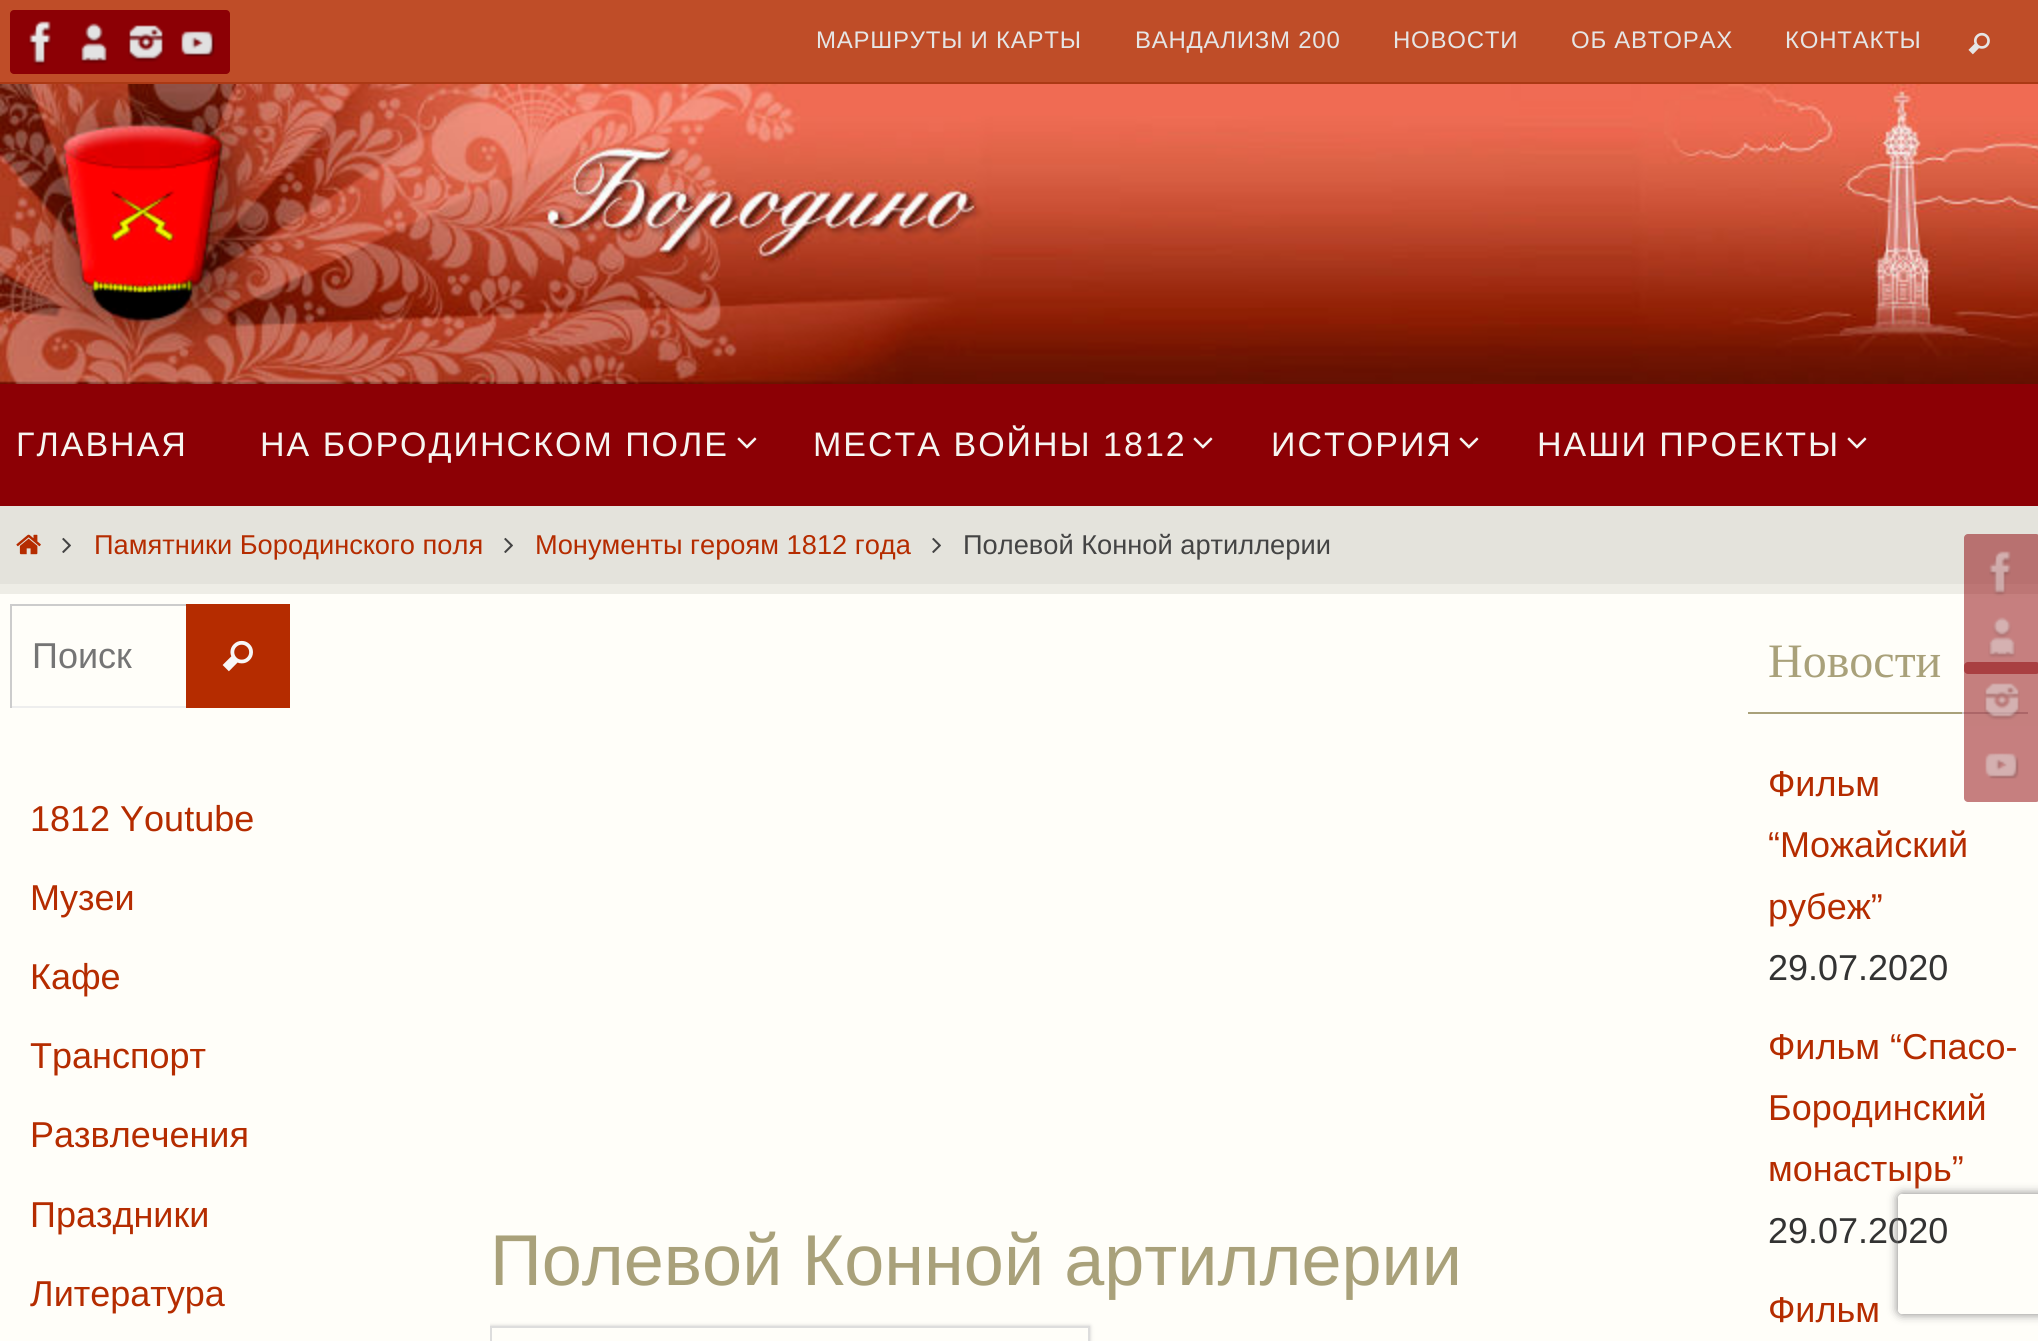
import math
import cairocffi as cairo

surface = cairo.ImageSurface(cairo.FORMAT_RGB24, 2038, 1341)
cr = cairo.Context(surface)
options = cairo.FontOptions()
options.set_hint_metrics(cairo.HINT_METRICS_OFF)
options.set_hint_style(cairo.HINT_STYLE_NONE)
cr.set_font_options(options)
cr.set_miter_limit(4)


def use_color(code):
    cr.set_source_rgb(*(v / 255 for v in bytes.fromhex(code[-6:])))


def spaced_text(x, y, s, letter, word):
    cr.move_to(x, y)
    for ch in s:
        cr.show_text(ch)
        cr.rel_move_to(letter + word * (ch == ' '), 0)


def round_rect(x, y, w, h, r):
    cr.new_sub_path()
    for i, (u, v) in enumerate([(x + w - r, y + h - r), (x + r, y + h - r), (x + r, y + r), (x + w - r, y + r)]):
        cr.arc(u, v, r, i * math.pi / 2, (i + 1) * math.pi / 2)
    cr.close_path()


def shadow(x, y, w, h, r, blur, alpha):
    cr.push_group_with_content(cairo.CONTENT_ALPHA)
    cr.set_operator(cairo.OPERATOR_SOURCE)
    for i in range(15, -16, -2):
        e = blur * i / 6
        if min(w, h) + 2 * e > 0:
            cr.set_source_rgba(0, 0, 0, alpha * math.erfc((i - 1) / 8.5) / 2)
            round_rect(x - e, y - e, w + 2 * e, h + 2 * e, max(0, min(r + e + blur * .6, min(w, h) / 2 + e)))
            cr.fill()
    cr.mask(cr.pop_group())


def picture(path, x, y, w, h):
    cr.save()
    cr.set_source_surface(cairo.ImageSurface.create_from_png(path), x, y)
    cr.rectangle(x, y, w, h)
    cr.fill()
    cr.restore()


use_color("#eeede6")
cr.paint()
use_color("#bf4d28")
cr.rectangle(0, 0, 2038, 82)
cr.fill()
use_color("#ab3914")
cr.rectangle(0, 82, 2038, 2)
cr.fill()
use_color("#8c0005")
round_rect(10, 10, 64, 64, 4)
cr.fill()
picture("img1.png", 28, 21, 24, 45)
round_rect(62, 10, 64, 64, 4)
cr.fill()
picture("img2.png", 80, 23, 28, 41)
round_rect(114, 10, 64, 64, 4)
cr.fill()
picture("img3.png", 128, 25, 36, 37)
round_rect(166, 10, 64, 64, 4)
cr.fill()
picture("img4.png", 181, 31, 34, 26)
cr.select_font_face("Liberation Sans")
cr.set_font_size(24)
use_color("#e5e5e5")
spaced_text(816, 48, "МАРШРУТЫ И КАРТЫ", 0.75, 0)
spaced_text(1135, 48, "ВАНДАЛИЗМ 200", 0.75, 0)
spaced_text(1393, 48, "НОВОСТИ", 0.75, 0)
spaced_text(1571, 48, "ОБ АВТОРАХ", 0.75, 0)
spaced_text(1785, 48, "КОНТАКТЫ", 0.75, 0)
picture("img5.png", 1968, 32, 22, 23)
picture("img6.png", 0, 84, 2038, 300)
use_color("#8c0005")
cr.rectangle(0, 384, 2038, 122)
cr.fill()
cr.set_font_size(34)
use_color("#f6f5f1")
spaced_text(16, 456, "ГЛАВНАЯ", 2, 0)
spaced_text(260, 456, "НА БОРОДИНСКОМ ПОЛЕ", 2, 0)
picture("img7.png", 737, 437, 20, 12)
spaced_text(813, 456, "МЕСТА ВОЙНЫ 1812", 2, 0)
picture("img7.png", 1193, 437, 20, 12)
spaced_text(1271, 456, "ИСТОРИЯ", 2, 0)
picture("img7.png", 1459, 437, 20, 12)
spaced_text(1537, 456, "НАШИ ПРОЕКТЫ", 2, 0)
picture("img7.png", 1847, 437, 20, 12)
use_color("#e4e3dc")
cr.rectangle(0, 506, 2038, 78)
cr.fill()
picture("img8.png", 16, 534, 25, 21)
picture("img9.png", 62, 537, 9, 16)
cr.set_font_size(27.25)
use_color("#b52c00")
cr.move_to(94, 554)
cr.show_text("Памятники Бородинского поля")
picture("img9.png", 504, 537, 9, 16)
cr.move_to(535, 554)
cr.show_text("Монументы героям 1812 года")
picture("img9.png", 932, 537, 9, 16)
use_color("#444444")
cr.move_to(963, 554)
cr.show_text("Полевой Конной артиллерии")
use_color("#fffef9")
cr.rectangle(0, 594, 2038, 747)
cr.fill()
cr.set_source_rgba(0.549, 0, 0.02, 0.5)
round_rect(1964, 534, 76, 76, 4)
cr.fill()
picture("img10.png", 1989, 551, 22, 45)
use_color("#c67f7f")
round_rect(1964, 598, 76, 76, 4)
cr.fill()
picture("img11.png", 1988, 617, 28, 41)
use_color("#cccccc")
cr.rectangle(1962, 712, 66, 2)
cr.fill()
cr.set_source_rgba(0.549, 0, 0.02, 0.5)
round_rect(1964, 662, 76, 76, 4)
cr.fill()
picture("img12.png", 1984, 683, 36, 37)
use_color("#c67f7f")
round_rect(1964, 726, 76, 76, 4)
cr.fill()
picture("img13.png", 1985, 753, 34, 26)
use_color("#b52c00")
cr.rectangle(186, 604, 104, 104)
cr.fill()
use_color("#cccccc")
cr.rectangle(10, 604, 176, 2)
cr.fill()
use_color("#eeeeee")
cr.rectangle(10, 706, 176, 2)
cr.fill()
use_color("#cccccc")
cr.rectangle(10, 604, 2, 104)
cr.fill()
cr.set_font_size(36)
use_color("#757575")
cr.move_to(32, 668)
cr.show_text("Поиск")
picture("img14.png", 222, 640, 31, 32)
use_color("#b52c00")
cr.move_to(30, 831)
cr.show_text("1812 Youtube")
cr.move_to(30, 910)
cr.show_text("Музеи")
cr.move_to(30, 989)
cr.show_text("Кафе")
cr.move_to(30, 1068)
cr.show_text("Транспорт")
cr.move_to(30, 1147)
cr.show_text("Развлечения")
cr.move_to(30, 1227)
cr.show_text("Праздники")
cr.move_to(30, 1306)
cr.show_text("Литература")
cr.set_font_size(72)
use_color("#a9a17a")
cr.move_to(490, 1285)
cr.show_text("Полевой Конной артиллерии")
cr.save()
cr.rectangle(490, 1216, 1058, 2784)
cr.clip()
cr.set_fill_rule(cairo.FILL_RULE_EVEN_ODD)
cr.new_path()
cr.move_to(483, 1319)
cr.line_to(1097, 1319)
cr.line_to(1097, 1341)
cr.line_to(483, 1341)
cr.close_path()
cr.move_to(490, 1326)
cr.line_to(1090, 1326)
cr.line_to(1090, 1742)
cr.line_to(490, 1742)
cr.close_path()
cr.clip()
use_color("#cdcdcc")
shadow(490, 1326, 600, 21, 0, 2, 1)
cr.restore()
cr.rectangle(491, 1327, 598, 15)
use_color("#dddddd")
cr.stroke()
use_color("#a9a17a")
cr.rectangle(1748, 712, 214, 2)
cr.fill()
cr.select_font_face("Liberation Serif")
cr.set_font_size(48)
cr.move_to(1768, 677)
cr.show_text("Новости")
cr.select_font_face("Liberation Sans")
cr.set_font_size(36)
use_color("#b52c00")
cr.move_to(1768, 796)
cr.show_text("Фильм")
cr.move_to(1768, 857)
cr.show_text("“Можайский")
cr.move_to(1768, 919)
cr.show_text("рубеж”")
use_color("#333333")
cr.move_to(1768, 980)
cr.show_text("29.07.2020")
use_color("#b52c00")
cr.move_to(1768, 1059)
cr.show_text("Фильм “Спасо-")
cr.move_to(1768, 1120)
cr.show_text("Бородинский")
cr.move_to(1768, 1181)
cr.show_text("монастырь”")
use_color("#333333")
cr.move_to(1768, 1243)
cr.show_text("29.07.2020")
use_color("#b52c00")
cr.move_to(1768, 1322)
cr.show_text("Фильм")
cr.save()
cr.set_fill_rule(cairo.FILL_RULE_EVEN_ODD)
cr.new_path()
cr.move_to(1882, 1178)
cr.line_to(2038, 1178)
cr.line_to(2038, 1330)
cr.line_to(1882, 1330)
cr.close_path()
cr.move_to(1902, 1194)
cr.line_to(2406, 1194)
cr.curve_to(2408, 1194, 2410, 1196, 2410, 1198)
cr.line_to(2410, 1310)
cr.curve_to(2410, 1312, 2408, 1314, 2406, 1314)
cr.line_to(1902, 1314)
cr.curve_to(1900, 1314, 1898, 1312, 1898, 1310)
cr.line_to(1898, 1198)
cr.curve_to(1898, 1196, 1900, 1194, 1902, 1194)
cr.close_path()
cr.clip()
use_color("#808080")
shadow(1898, 1194, 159, 120, 4, 5, 1)
cr.restore()
surface.write_to_png("result.png")
